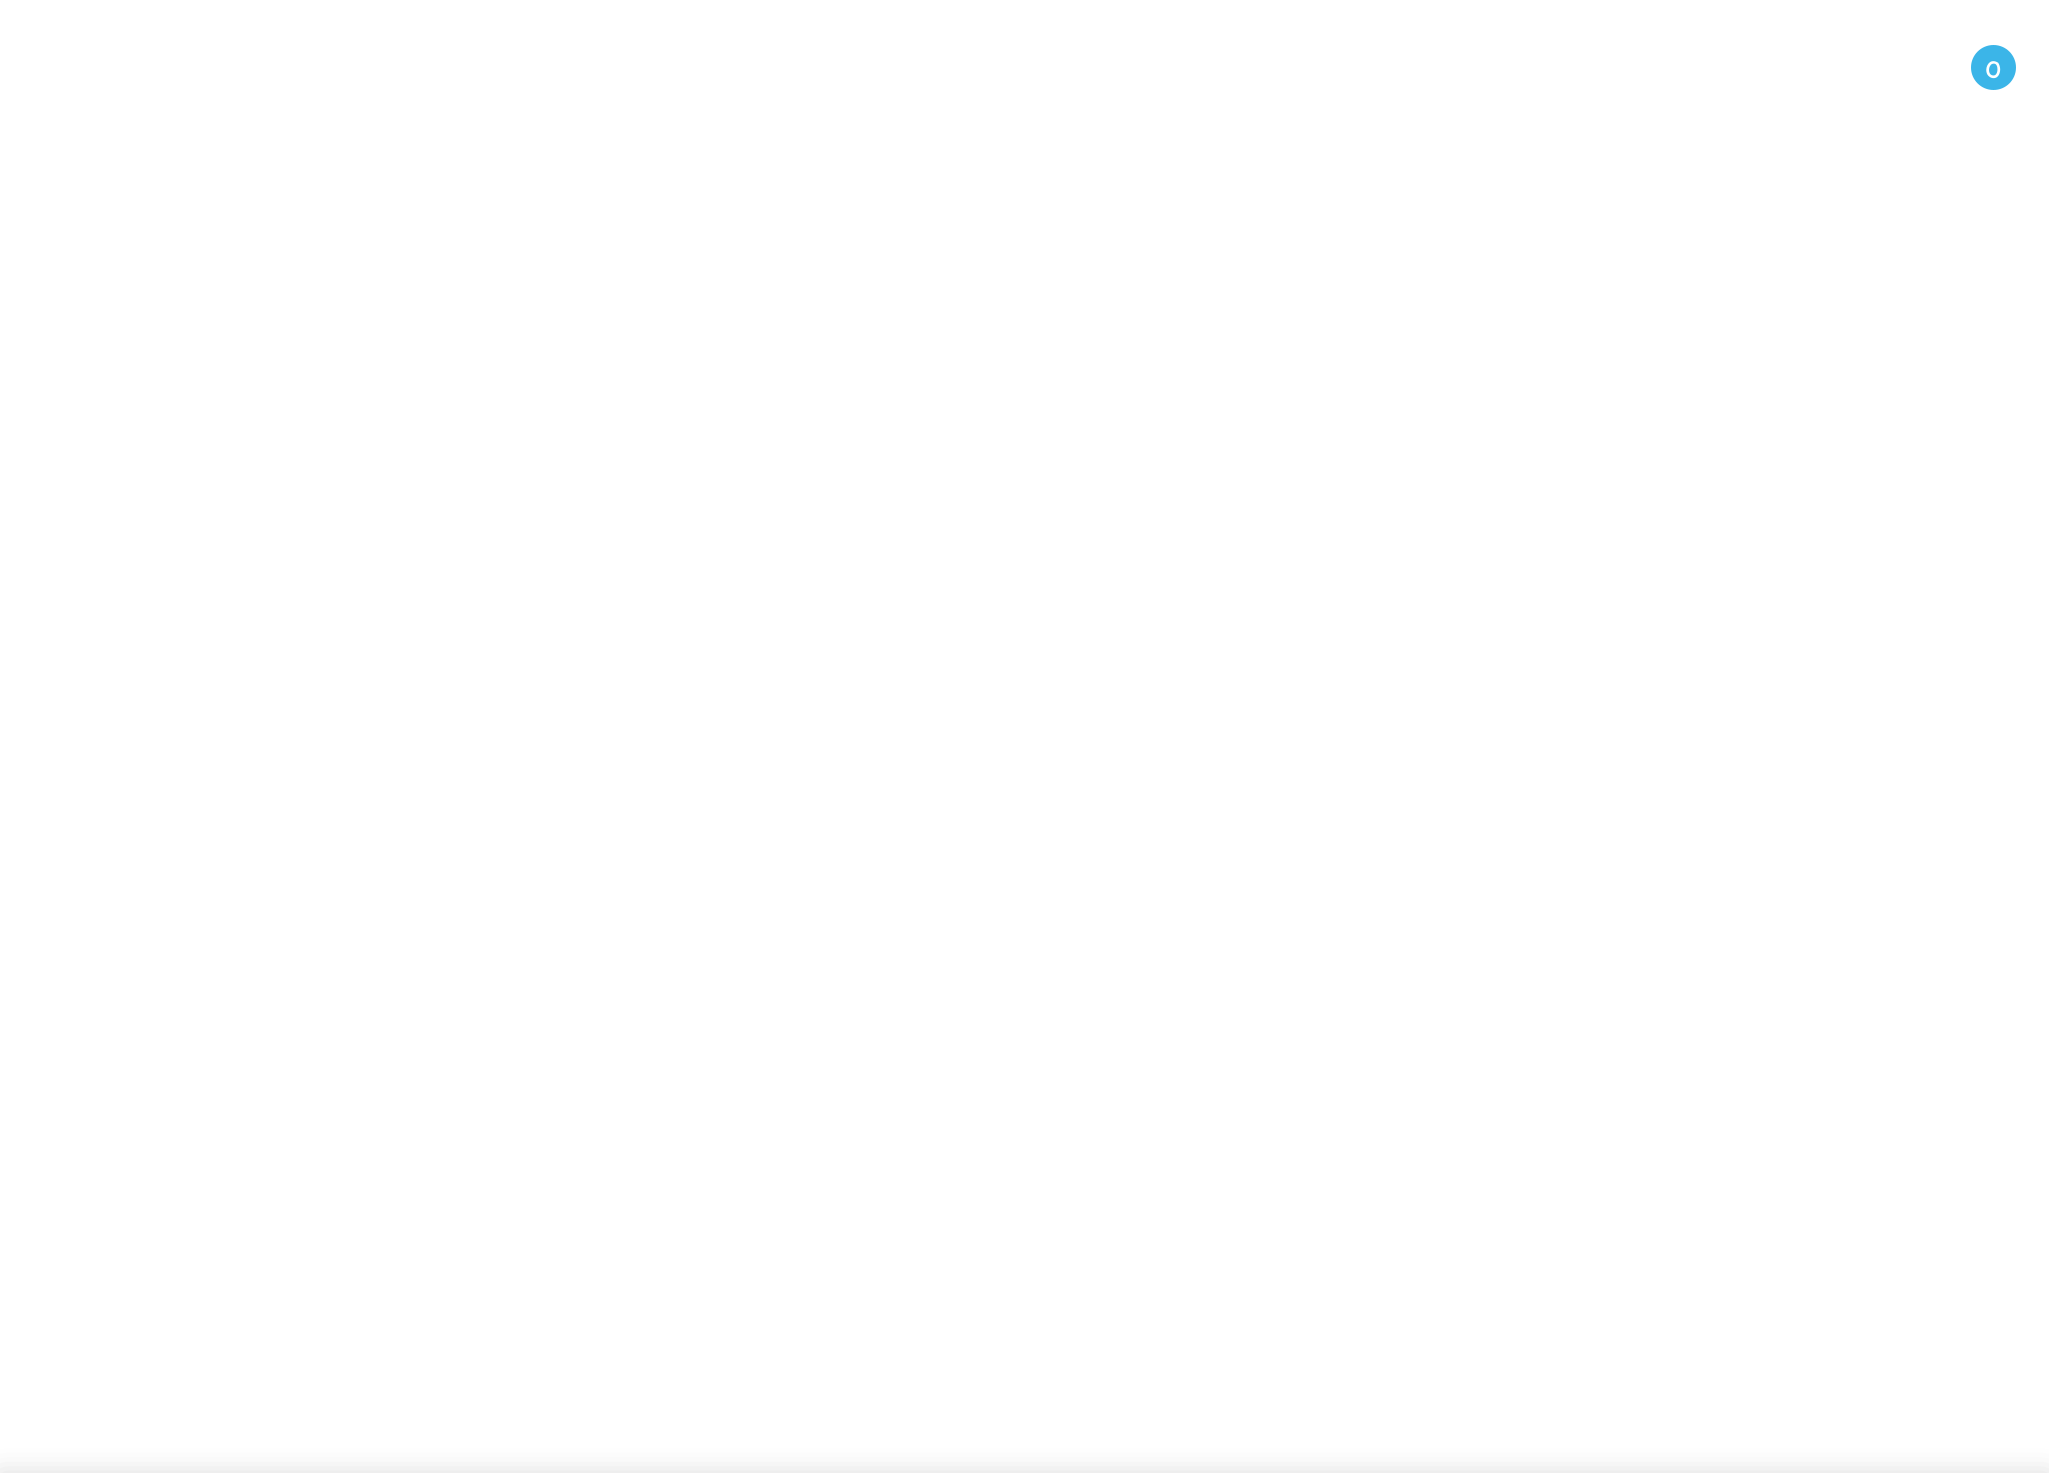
import math
import cairocffi as cairo

surface = cairo.ImageSurface(cairo.FORMAT_RGB24, 2049, 1473)
cr = cairo.Context(surface)
options = cairo.FontOptions()
options.set_hint_metrics(cairo.HINT_METRICS_OFF)
options.set_hint_style(cairo.HINT_STYLE_NONE)
cr.set_font_options(options)
cr.set_miter_limit(4)


def use_color(code):
    cr.set_source_rgb(*(v / 255 for v in bytes.fromhex(code[-6:])))


def round_rect(x, y, w, h, r):
    cr.new_sub_path()
    for i, (u, v) in enumerate([(x + w - r, y + h - r), (x + r, y + h - r), (x + r, y + r), (x + w - r, y + r)]):
        cr.arc(u, v, r, i * math.pi / 2, (i + 1) * math.pi / 2)
    cr.close_path()


def shadow(x, y, w, h, r, blur, alpha):
    cr.push_group_with_content(cairo.CONTENT_ALPHA)
    cr.set_operator(cairo.OPERATOR_SOURCE)
    for i in range(15, -16, -2):
        e = blur * i / 6
        if min(w, h) + 2 * e > 0:
            cr.set_source_rgba(0, 0, 0, alpha * math.erfc((i - 1) / 8.5) / 2)
            round_rect(x - e, y - e, w + 2 * e, h + 2 * e, max(0, min(r + e + blur * .6, min(w, h) / 2 + e)))
            cr.fill()
    cr.mask(cr.pop_group())


use_color("#ffffff")
cr.paint()
use_color("#3bb5e8")
cr.arc(1993.5, 67.5, 22.5, 0, 2 * math.pi)
cr.fill()
cr.select_font_face("Itim")
cr.set_font_size(27)
use_color("#ffffff")
cr.move_to(1985, 78)
cr.show_text("0")
use_color("#000000")
shadow(0, 1473, 2049, 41, 0, 13.5, 0.14)
surface.write_to_png("result.png")
